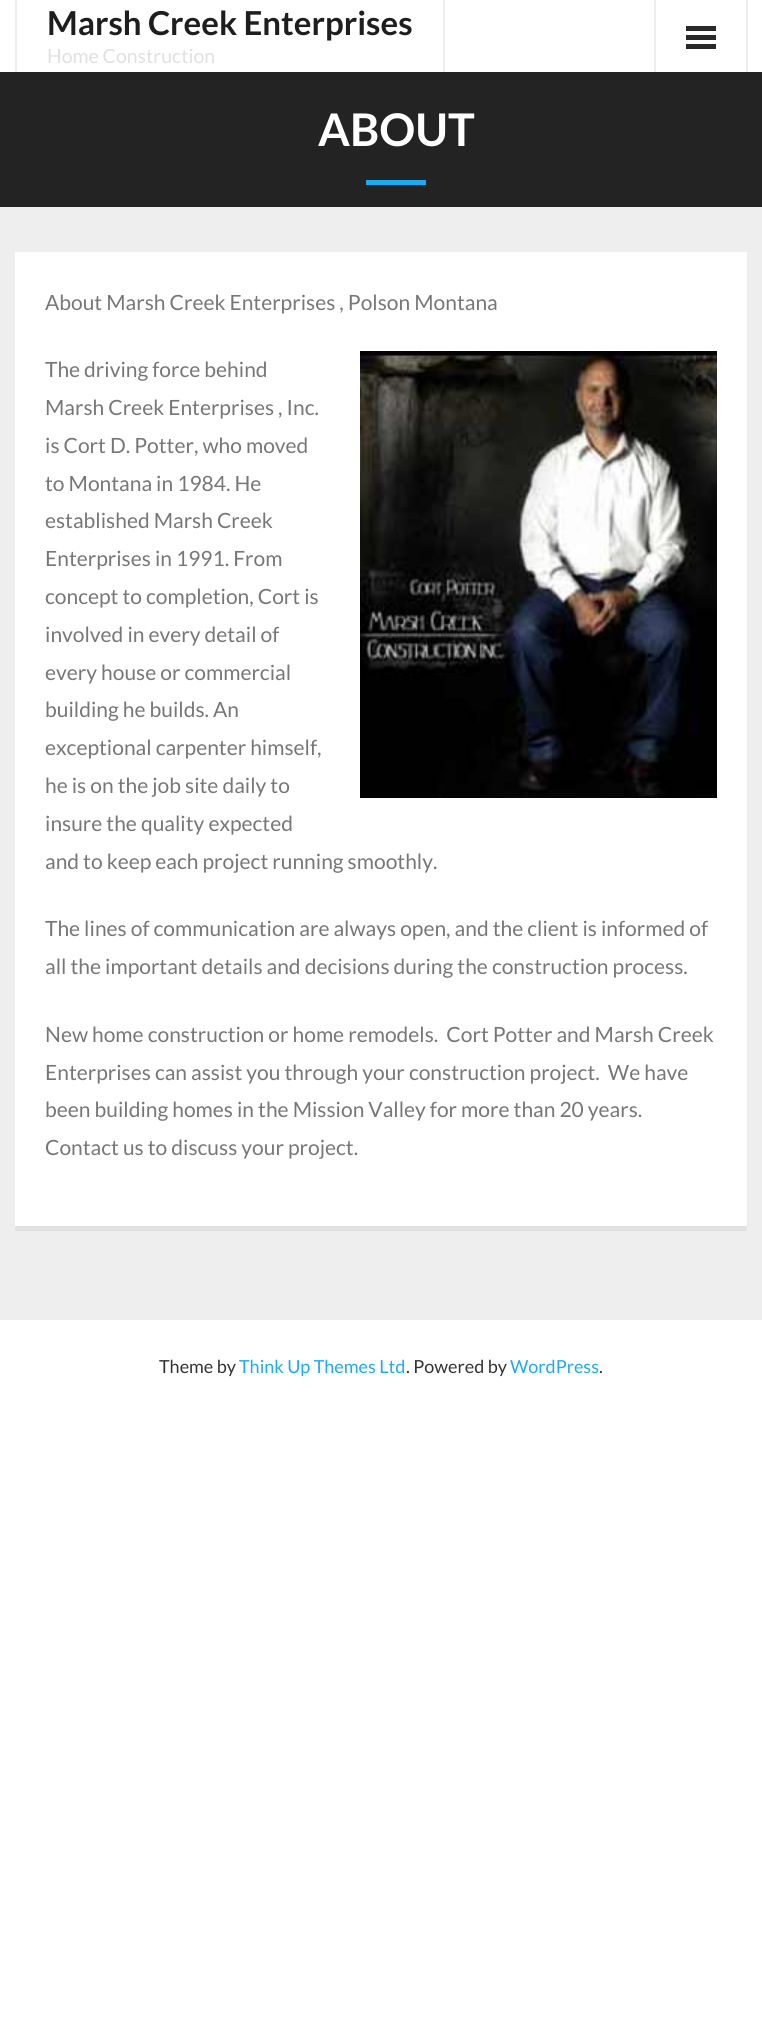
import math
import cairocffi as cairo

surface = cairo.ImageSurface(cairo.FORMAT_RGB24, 762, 2039)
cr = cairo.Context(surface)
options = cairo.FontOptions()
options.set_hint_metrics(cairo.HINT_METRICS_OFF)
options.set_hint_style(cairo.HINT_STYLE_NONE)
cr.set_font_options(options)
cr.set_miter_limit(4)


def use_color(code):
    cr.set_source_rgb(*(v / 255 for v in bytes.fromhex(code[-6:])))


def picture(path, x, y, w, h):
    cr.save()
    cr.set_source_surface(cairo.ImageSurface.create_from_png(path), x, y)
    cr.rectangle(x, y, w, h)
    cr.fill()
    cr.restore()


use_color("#ffffff")
cr.paint()
use_color("#eeeeee")
cr.rectangle(0, 207, 762, 1113)
cr.fill()
cr.rectangle(443, 0, 2, 72)
cr.fill()
cr.rectangle(15, 0, 2, 72)
cr.fill()
cr.select_font_face("Lato", cairo.FONT_SLANT_NORMAL, cairo.FONT_WEIGHT_BOLD)
cr.set_font_size(33)
use_color("#1e1e1e")
cr.move_to(47, 35)
cr.show_text("Marsh Creek Enterprises")
cr.select_font_face("Lato")
cr.set_font_size(19.5)
use_color("#e0e0e0")
cr.move_to(47, 63)
cr.show_text("Home Construction")
use_color("#eeeeee")
cr.rectangle(746, 0, 2, 72)
cr.fill()
cr.rectangle(654, 0, 2, 72)
cr.fill()
use_color("#292929")
cr.rectangle(686, 26, 30, 5)
cr.fill()
cr.rectangle(686, 35, 30, 5)
cr.fill()
cr.rectangle(686, 44, 30, 5)
cr.fill()
use_color("#232323")
cr.rectangle(0, 72, 762, 135)
cr.fill()
cr.select_font_face("Lato", cairo.FONT_SLANT_NORMAL, cairo.FONT_WEIGHT_BOLD)
cr.set_font_size(45)
use_color("#ffffff")
cr.move_to(318, 146)
cr.show_text("ABOUT")
use_color("#1eaaf1")
cr.rectangle(366, 180, 60, 5)
cr.fill()
use_color("#ffffff")
cr.rectangle(15, 252, 732, 974)
cr.fill()
use_color("#e2e2e2")
cr.rectangle(15, 1226, 732, 5)
cr.fill()
cr.select_font_face("Lato")
cr.set_font_size(21)
use_color("#777777")
cr.move_to(45, 310)
cr.show_text("About Marsh Creek Enterprises , Polson Montana")
cr.move_to(45, 377)
cr.show_text("The driving force behind")
picture("img1.png", 360, 351, 357, 447)
cr.move_to(45, 415)
cr.show_text("Marsh Creek Enterprises , Inc.")
cr.move_to(45, 453)
cr.show_text("is Cort D. Potter, who moved")
cr.move_to(45, 491)
cr.show_text("to Montana in 1984. He")
cr.move_to(45, 528)
cr.show_text("established Marsh Creek")
cr.move_to(45, 566)
cr.show_text("Enterprises in 1991. From")
cr.move_to(45, 604)
cr.show_text("concept to completion, Cort is")
cr.move_to(45, 642)
cr.show_text("involved in every detail of")
cr.move_to(45, 680)
cr.show_text("every house or commercial")
cr.move_to(45, 717)
cr.show_text("building he builds. An")
cr.move_to(45, 755)
cr.show_text("exceptional carpenter himself,")
cr.move_to(45, 793)
cr.show_text("he is on the job site daily to")
cr.move_to(45, 831)
cr.show_text("insure the quality expected")
cr.move_to(45, 869)
cr.show_text("and to keep each project running smoothly.")
cr.move_to(45, 936)
cr.show_text("The lines of communication are always open, and the client is informed of")
cr.move_to(45, 974)
cr.show_text("all the important details and decisions during the construction process.")
cr.move_to(45, 1042)
cr.show_text("New home construction or home remodels.  Cort Potter and Marsh Creek")
cr.move_to(45, 1080)
cr.show_text("Enterprises can assist you through your construction project.  We have")
cr.move_to(45, 1117)
cr.show_text("been building homes in the Mission Valley for more than 20 years.")
cr.move_to(45, 1155)
cr.show_text("Contact us to discuss your project.")
cr.set_font_size(18)
use_color("#333333")
cr.move_to(159, 1373)
cr.show_text("Theme by")
use_color("#1eaaf1")
cr.move_to(239, 1373)
cr.show_text("Think Up Themes Ltd")
use_color("#333333")
cr.move_to(406, 1373)
cr.show_text(". Powered by")
use_color("#1eaaf1")
cr.move_to(510, 1373)
cr.show_text("WordPress")
use_color("#333333")
cr.move_to(599, 1373)
cr.show_text(".")
surface.write_to_png("result.png")
